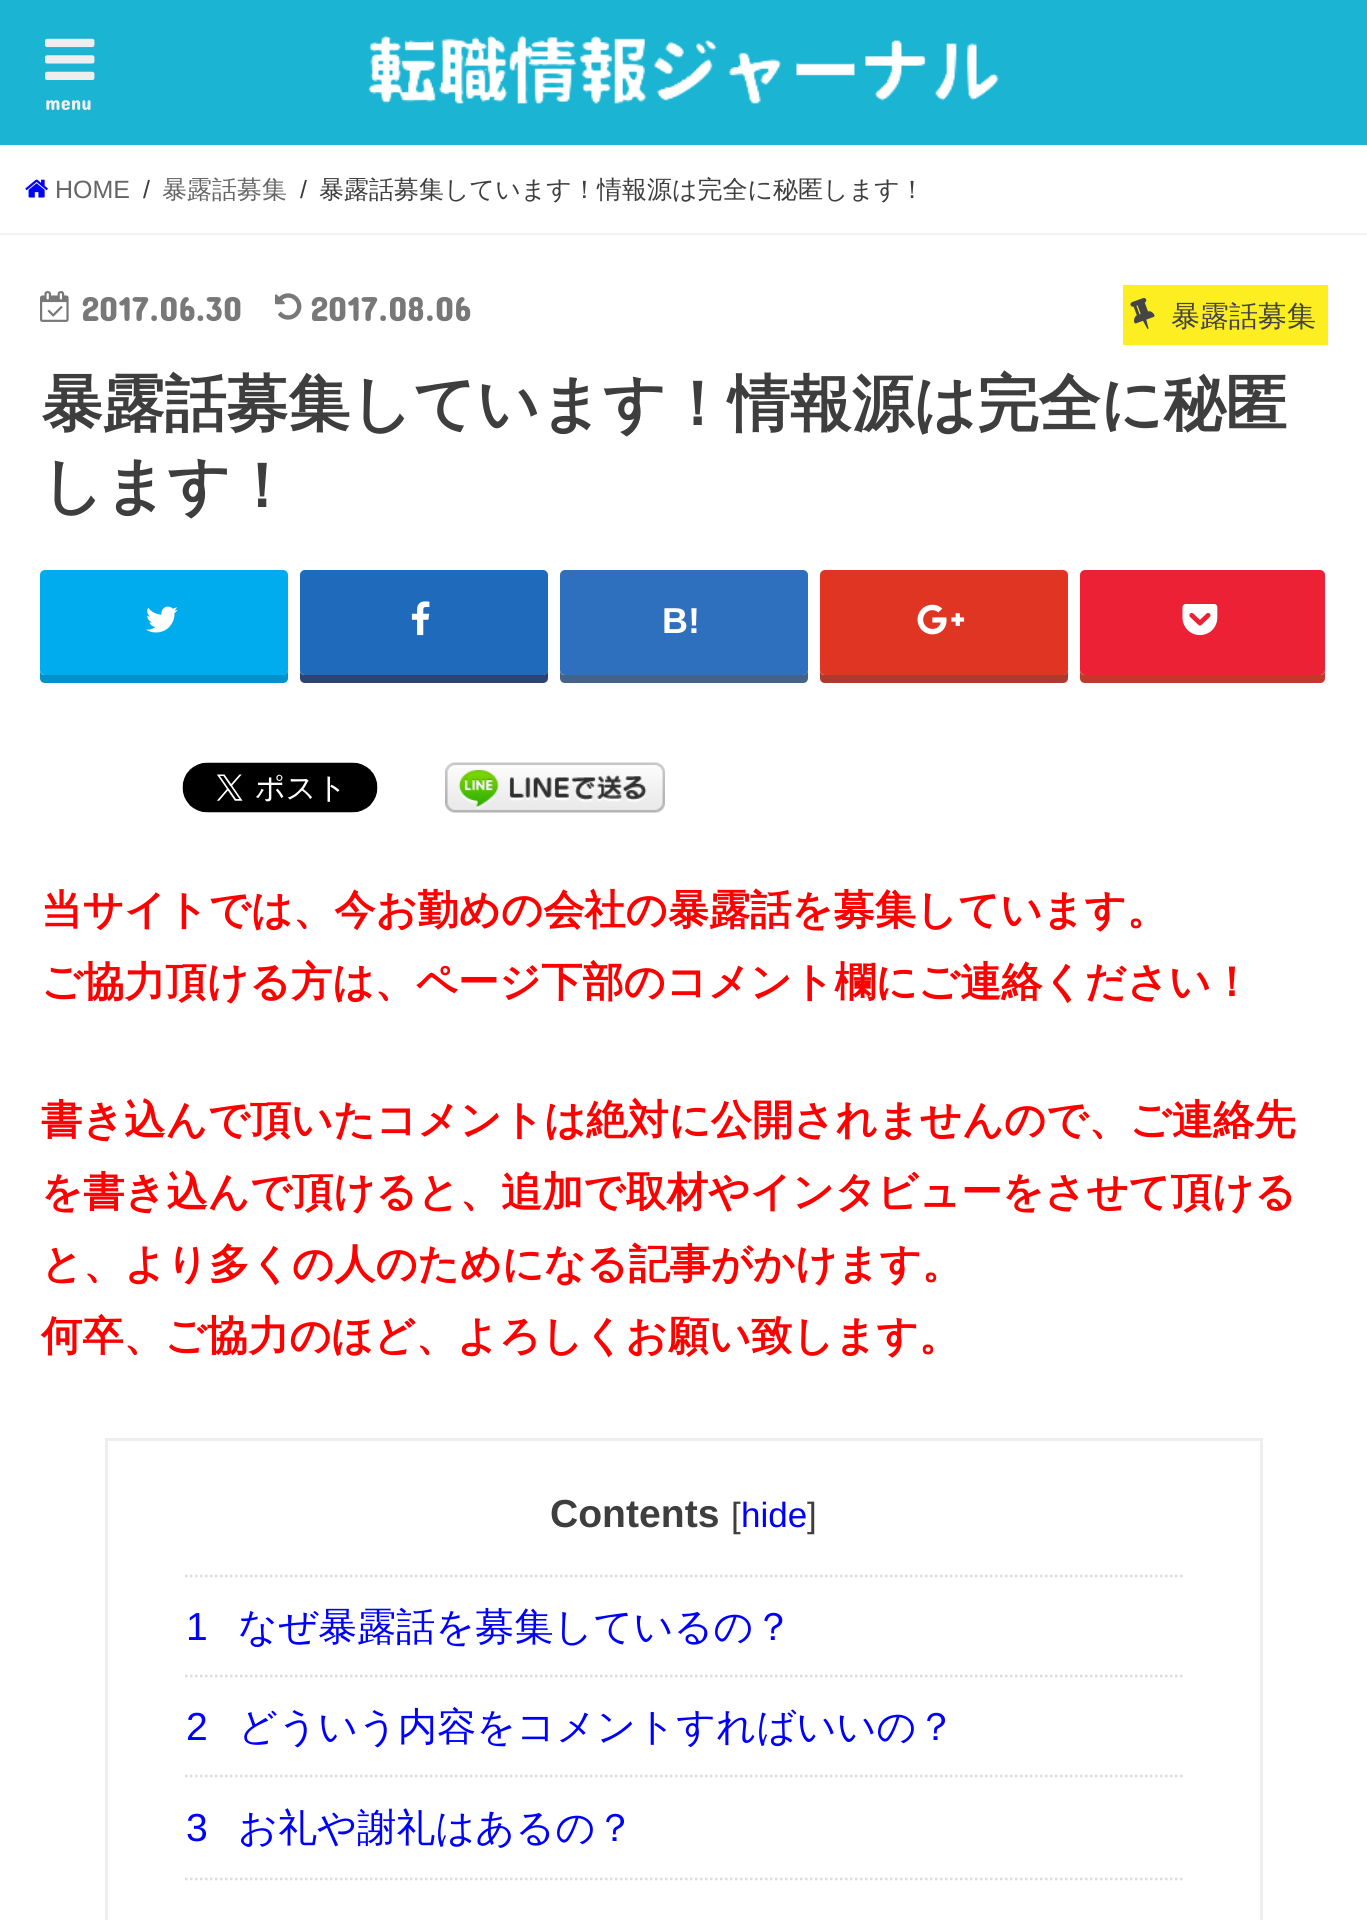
import math
import cairocffi as cairo

surface = cairo.ImageSurface(cairo.FORMAT_RGB24, 1367, 1920)
cr = cairo.Context(surface)
options = cairo.FontOptions()
options.set_hint_metrics(cairo.HINT_METRICS_OFF)
options.set_hint_style(cairo.HINT_STYLE_NONE)
cr.set_font_options(options)
cr.set_miter_limit(4)


def use_color(code):
    cr.set_source_rgb(*(v / 255 for v in bytes.fromhex(code[-6:])))


def round_rect(x, y, w, h, r):
    cr.new_sub_path()
    for i, (u, v) in enumerate([(x + w - r, y + h - r), (x + r, y + h - r), (x + r, y + r), (x + w - r, y + r)]):
        cr.arc(u, v, r, i * math.pi / 2, (i + 1) * math.pi / 2)
    cr.close_path()


def shadow(x, y, w, h, r, blur, alpha):
    cr.push_group_with_content(cairo.CONTENT_ALPHA)
    cr.set_operator(cairo.OPERATOR_SOURCE)
    for i in range(15, -16, -2):
        e = blur * i / 6
        if min(w, h) + 2 * e > 0:
            cr.set_source_rgba(0, 0, 0, alpha * math.erfc((i - 1) / 8.5) / 2)
            round_rect(x - e, y - e, w + 2 * e, h + 2 * e, max(0, min(r + e + blur * .6, min(w, h) / 2 + e)))
            cr.fill()
    cr.mask(cr.pop_group())


def picture(path, x, y, w, h):
    cr.save()
    cr.set_source_surface(cairo.ImageSurface.create_from_png(path), x, y)
    cr.rectangle(x, y, w, h)
    cr.fill()
    cr.restore()


use_color("#ffffff")
cr.paint()
use_color("#1bb4d3")
cr.rectangle(0, 0, 1367, 145)
cr.fill()
picture("img1.png", 368, 35, 631, 69)
picture("img2.png", 45, 38, 50, 42)
cr.select_font_face("Concert One")
cr.set_font_size(20)
use_color("#eeeeee")
cr.move_to(45, 110)
cr.show_text("menu")
use_color("#f7f7f7")
cr.rectangle(0, 233, 1367, 2)
cr.fill()
picture("img3.png", 25, 179, 23, 19)
cr.select_font_face("Liberation Sans")
cr.set_font_size(25)
use_color("#666666")
cr.move_to(55, 198)
cr.show_text("HOME")
use_color("#3e3e3e")
cr.move_to(143, 198)
cr.show_text("/")
cr.select_font_face("WenQuanYi Zen Hei Medium")
use_color("#666666")
cr.move_to(162, 198)
cr.show_text("暴露話募集")
cr.select_font_face("Liberation Sans")
use_color("#3e3e3e")
cr.move_to(300, 198)
cr.show_text("/")
cr.select_font_face("WenQuanYi Zen Hei Medium")
cr.move_to(319, 198)
cr.show_text("暴露話募集しています！情報源は完全に秘匿します！")
use_color("#dddddd")
shadow(0, 235, 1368, 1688, 0, 1, 1)
use_color("#ffffff")
cr.rectangle(0, 235, 1367, 1685)
cr.fill()
picture("img4.png", 40, 291, 29, 31)
cr.select_font_face("Concert One")
cr.set_font_size(35)
use_color("#787878")
cr.move_to(81, 321)
cr.show_text("2017.06.30")
picture("img5.png", 275, 293, 27, 27)
cr.move_to(310, 321)
cr.show_text("2017.08.06")
use_color("#fcee21")
cr.rectangle(1123, 285, 205, 60)
cr.fill()
picture("img6.png", 1130, 298, 25, 32)
cr.select_font_face("WenQuanYi Zen Hei Medium")
cr.set_font_size(29)
use_color("#444444")
cr.move_to(1171, 326)
cr.show_text("暴露話募集")
cr.select_font_face("WenQuanYi Zen Hei", cairo.FONT_SLANT_NORMAL, cairo.FONT_WEIGHT_BOLD)
cr.set_font_size(61.8)
use_color("#3e3e3e")
cr.move_to(41, 425)
cr.show_text("暴露話募集しています！情報源は完全に秘匿")
cr.move_to(41, 507)
cr.show_text("します！")
use_color("#0092ca")
cr.new_path()
cr.move_to(40, 670)
cr.line_to(40, 678)
cr.curve_to(40, 681, 42, 683, 45, 683)
cr.line_to(283, 683)
cr.curve_to(286, 683, 288, 681, 288, 678)
cr.line_to(288, 583)
cr.line_to(288, 581)
cr.line_to(288, 670)
cr.curve_to(288, 673, 285, 675, 282, 675)
cr.line_to(45, 675)
cr.curve_to(42, 675, 40, 673, 40, 670)
cr.close_path()
cr.fill()
use_color("#00acee")
round_rect(40, 570, 248, 105, 5)
cr.fill()
picture("img7.png", 146, 606, 32, 27)
use_color("#2c4373")
cr.new_path()
cr.move_to(300, 670)
cr.line_to(300, 678)
cr.curve_to(300, 681, 302, 683, 305, 683)
cr.line_to(543, 683)
cr.curve_to(546, 683, 548, 681, 548, 678)
cr.line_to(548, 583)
cr.line_to(548, 581)
cr.line_to(548, 670)
cr.curve_to(548, 673, 545, 675, 542, 675)
cr.line_to(305, 675)
cr.curve_to(302, 675, 300, 673, 300, 670)
cr.close_path()
cr.fill()
use_color("#1f6aba")
round_rect(300, 570, 248, 105, 5)
cr.fill()
picture("img8.png", 411, 601, 19, 35)
use_color("#43638b")
cr.new_path()
cr.move_to(560, 670)
cr.line_to(560, 678)
cr.curve_to(560, 681, 562, 683, 565, 683)
cr.line_to(803, 683)
cr.curve_to(806, 683, 808, 681, 808, 678)
cr.line_to(808, 583)
cr.line_to(808, 581)
cr.line_to(808, 670)
cr.curve_to(808, 673, 805, 675, 802, 675)
cr.line_to(565, 675)
cr.curve_to(562, 675, 560, 673, 560, 670)
cr.close_path()
cr.fill()
use_color("#2f70be")
round_rect(560, 570, 248, 105, 5)
cr.fill()
cr.select_font_face("Liberation Sans", cairo.FONT_SLANT_NORMAL, cairo.FONT_WEIGHT_BOLD)
cr.set_font_size(36)
use_color("#ffffff")
cr.move_to(662, 633)
cr.show_text("B!")
use_color("#ad3a2d")
cr.new_path()
cr.move_to(820, 670)
cr.line_to(820, 678)
cr.curve_to(820, 681, 822, 683, 825, 683)
cr.line_to(1063, 683)
cr.curve_to(1066, 683, 1068, 681, 1068, 678)
cr.line_to(1068, 583)
cr.line_to(1068, 581)
cr.line_to(1068, 670)
cr.curve_to(1068, 673, 1065, 675, 1062, 675)
cr.line_to(825, 675)
cr.curve_to(822, 675, 820, 673, 820, 670)
cr.close_path()
cr.fill()
use_color("#df3522")
round_rect(820, 570, 248, 105, 5)
cr.fill()
picture("img9.png", 917, 604, 48, 31)
use_color("#c0392b")
cr.new_path()
cr.move_to(1080, 670)
cr.line_to(1080, 678)
cr.curve_to(1080, 681, 1082, 683, 1085, 683)
cr.line_to(1320, 683)
cr.curve_to(1323, 683, 1325, 681, 1325, 678)
cr.line_to(1325, 670)
cr.curve_to(1325, 673, 1323, 675, 1320, 675)
cr.line_to(1085, 675)
cr.curve_to(1082, 675, 1080, 673, 1080, 670)
cr.close_path()
cr.fill()
use_color("#ec2136")
round_rect(1080, 570, 245, 105, 5)
cr.fill()
picture("img10.png", 1182, 604, 36, 32)
picture("img11.png", 182, 762, 196, 51)
picture("img12.png", 445, 762, 220, 51)
cr.select_font_face("WenQuanYi Zen Hei", cairo.FONT_SLANT_NORMAL, cairo.FONT_WEIGHT_BOLD)
cr.set_font_size(41.2)
use_color("#ff0000")
cr.move_to(41, 924)
cr.show_text("当サイトでは、今お勤めの会社の暴露話を募集しています。")
cr.move_to(41, 996)
cr.show_text("ご協力頂ける方は、ページ下部のコメント欄にご連絡ください！")
cr.move_to(41, 1134)
cr.show_text("書き込んで頂いたコメントは絶対に公開されませんので、ご連絡先")
cr.move_to(41, 1206)
cr.show_text("を書き込んで頂けると、追加で取材やインタビューをさせて頂ける")
cr.move_to(41, 1278)
cr.show_text("と、より多くの人のためになる記事がかけます。")
cr.move_to(41, 1350)
cr.show_text("何卒、ご協力のほど、よろしくお願い致します。")
cr.rectangle(106.5, 1439.5, 1155, 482)
use_color("#eeeeee")
cr.set_line_width(3)
cr.stroke()
cr.select_font_face("Liberation Sans", cairo.FONT_SLANT_NORMAL, cairo.FONT_WEIGHT_BOLD)
cr.set_font_size(39.1)
use_color("#3e3e3e")
cr.move_to(550, 1527)
cr.show_text("Contents")
cr.select_font_face("Liberation Sans")
cr.set_font_size(35)
cr.move_to(731, 1527)
cr.show_text("[")
use_color("#0000ff")
cr.move_to(741, 1527)
cr.show_text("hide")
use_color("#3e3e3e")
cr.move_to(807, 1527)
cr.show_text("]")
cr.new_path()
cr.move_to(185, 1576)
cr.line_to(1182.5, 1576)
use_color("#dddddd")
cr.set_line_width(2.5)
cr.set_dash([2.5, 2.5])
cr.stroke()
cr.set_font_size(39.1)
use_color("#0000ff")
cr.move_to(186, 1640)
cr.show_text("1")
cr.select_font_face("WenQuanYi Zen Hei Medium")
cr.move_to(238, 1640)
cr.show_text("なぜ暴露話を募集しているの？")
cr.new_path()
cr.move_to(185, 1676)
cr.line_to(1182.5, 1676)
use_color("#dddddd")
cr.stroke()
cr.select_font_face("Liberation Sans")
use_color("#0000ff")
cr.move_to(186, 1740)
cr.show_text("2")
cr.select_font_face("WenQuanYi Zen Hei Medium")
cr.move_to(238, 1740)
cr.show_text("どういう内容をコメントすればいいの？")
cr.new_path()
cr.move_to(185, 1776)
cr.line_to(1182.5, 1776)
use_color("#dddddd")
cr.stroke()
cr.select_font_face("Liberation Sans")
use_color("#0000ff")
cr.move_to(186, 1841)
cr.show_text("3")
cr.select_font_face("WenQuanYi Zen Hei Medium")
cr.move_to(238, 1841)
cr.show_text("お礼や謝礼はあるの？")
cr.new_path()
cr.move_to(185, 1879)
cr.line_to(1182.5, 1879)
use_color("#dddddd")
cr.stroke()
surface.write_to_png("result.png")
